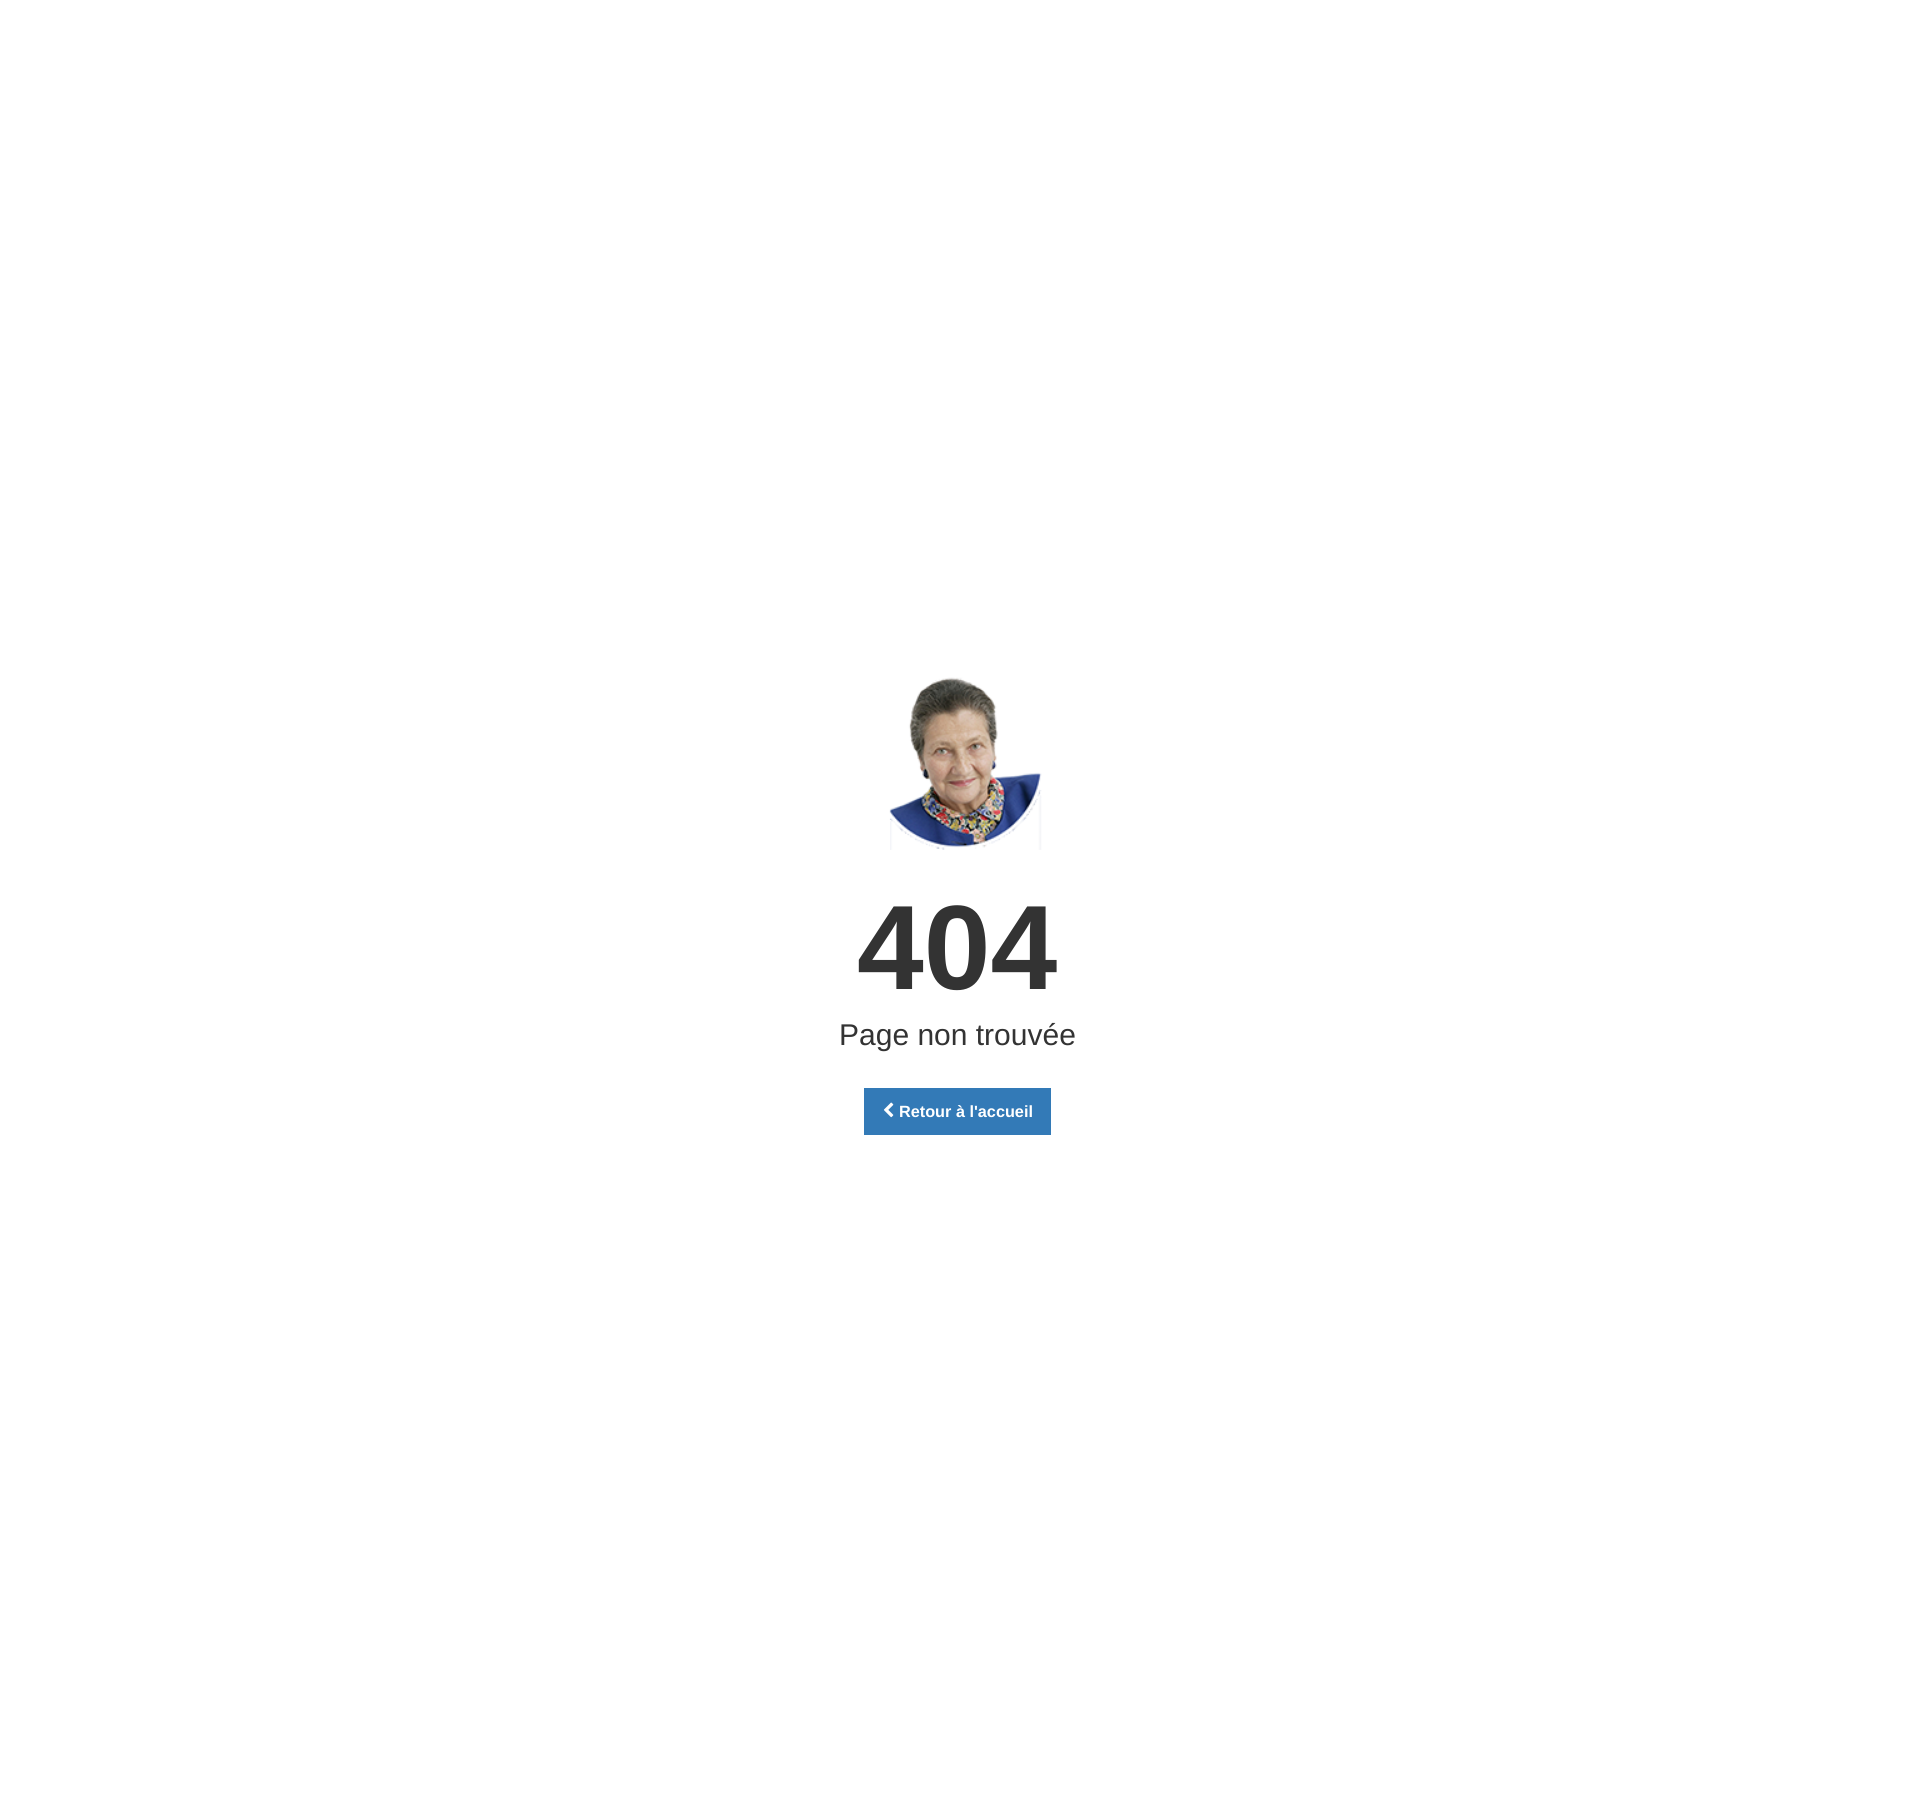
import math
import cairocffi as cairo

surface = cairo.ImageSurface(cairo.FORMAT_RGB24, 1914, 1808)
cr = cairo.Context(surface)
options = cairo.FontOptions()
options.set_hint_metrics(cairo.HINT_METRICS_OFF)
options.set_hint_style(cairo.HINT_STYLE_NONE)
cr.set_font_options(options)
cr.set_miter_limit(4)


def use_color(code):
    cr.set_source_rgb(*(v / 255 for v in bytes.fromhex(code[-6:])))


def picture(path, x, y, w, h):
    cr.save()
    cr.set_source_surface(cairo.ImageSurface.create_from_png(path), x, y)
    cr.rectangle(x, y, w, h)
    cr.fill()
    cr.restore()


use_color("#ffffff")
cr.paint()
picture("img1.png", 889, 677, 153, 173)
cr.select_font_face("Liberation Sans", cairo.FONT_SLANT_NORMAL, cairo.FONT_WEIGHT_BOLD)
cr.set_font_size(120)
use_color("#333333")
cr.move_to(857, 989)
cr.show_text("404")
cr.select_font_face("Liberation Sans")
cr.set_font_size(30)
cr.move_to(839, 1045)
cr.show_text("Page non trouvée")
use_color("#337ab7")
cr.rectangle(864, 1088, 187, 47)
cr.fill()
picture("img2.png", 883, 1102, 11, 16)
cr.select_font_face("Liberation Sans", cairo.FONT_SLANT_NORMAL, cairo.FONT_WEIGHT_BOLD)
cr.set_font_size(16.25)
use_color("#ffffff")
cr.move_to(899, 1117)
cr.show_text("Retour à l'accueil")
surface.write_to_png("result.png")
